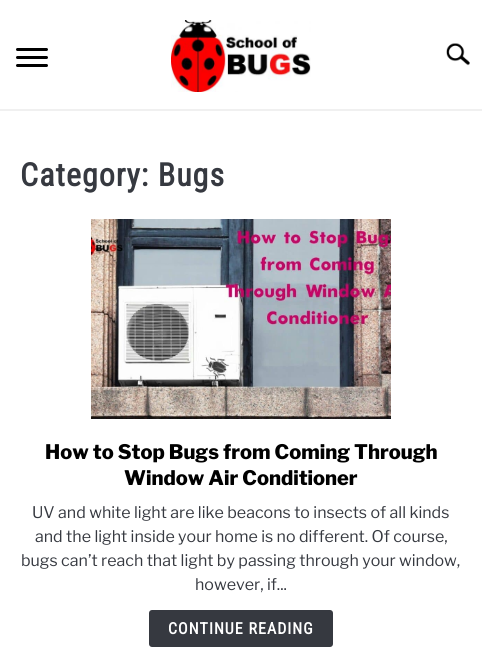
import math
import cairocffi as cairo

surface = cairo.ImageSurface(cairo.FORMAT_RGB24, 482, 658)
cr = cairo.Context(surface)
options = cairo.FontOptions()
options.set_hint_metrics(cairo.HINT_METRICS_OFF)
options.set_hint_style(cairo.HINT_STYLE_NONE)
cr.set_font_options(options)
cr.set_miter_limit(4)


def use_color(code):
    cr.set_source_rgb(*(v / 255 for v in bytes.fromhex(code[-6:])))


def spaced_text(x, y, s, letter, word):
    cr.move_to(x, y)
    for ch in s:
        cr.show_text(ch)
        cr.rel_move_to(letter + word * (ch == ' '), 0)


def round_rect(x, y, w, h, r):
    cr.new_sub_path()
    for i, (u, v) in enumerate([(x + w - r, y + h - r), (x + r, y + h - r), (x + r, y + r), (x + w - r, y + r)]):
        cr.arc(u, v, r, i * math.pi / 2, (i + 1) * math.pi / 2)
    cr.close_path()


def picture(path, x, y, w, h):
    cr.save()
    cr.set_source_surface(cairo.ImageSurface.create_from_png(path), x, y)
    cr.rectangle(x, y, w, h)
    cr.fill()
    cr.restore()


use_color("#ffffff")
cr.paint()
use_color("#000000")
round_rect(16, 56, 32, 3, 1.5)
cr.fill()
round_rect(16, 48, 32, 3, 1.5)
cr.fill()
round_rect(16, 64, 32, 3, 1.5)
cr.fill()
picture("img1.png", 171, 20, 140, 72)
picture("img2.png", 446, 43, 24, 23)
use_color("#f0f0f0")
cr.rectangle(0, 109, 482, 2)
cr.fill()
cr.select_font_face("Roboto Condensed", cairo.FONT_SLANT_NORMAL, cairo.FONT_WEIGHT_BOLD)
cr.set_font_size(32)
use_color("#363940")
spaced_text(20, 186, "Category: Bugs", 1, 0)
picture("img3.png", 91, 219, 300, 200)
cr.select_font_face("Libre Franklin ExtraBold")
cr.set_font_size(20)
use_color("#000000")
cr.move_to(45, 459)
cr.show_text("How to Stop Bugs from Coming Through")
cr.move_to(124, 485)
cr.show_text("Window Air Conditioner")
cr.select_font_face("Libre Franklin")
cr.set_font_size(16)
use_color("#363940")
cr.move_to(32, 518)
cr.show_text("UV and white light are like beacons to insects of all kinds")
cr.move_to(35, 542)
cr.show_text("and the light inside your home is no different. Of course,")
cr.move_to(21, 566)
cr.show_text("bugs can’t reach that light by passing through your window,")
cr.move_to(195, 590)
cr.show_text("however, if...")
round_rect(149, 610, 184, 37, 3)
cr.fill()
cr.select_font_face("Roboto Condensed", cairo.FONT_SLANT_NORMAL, cairo.FONT_WEIGHT_BOLD)
use_color("#ffffff")
spaced_text(168, 634, "CONTINUE READING", 1, 0)
surface.write_to_png("result.png")
